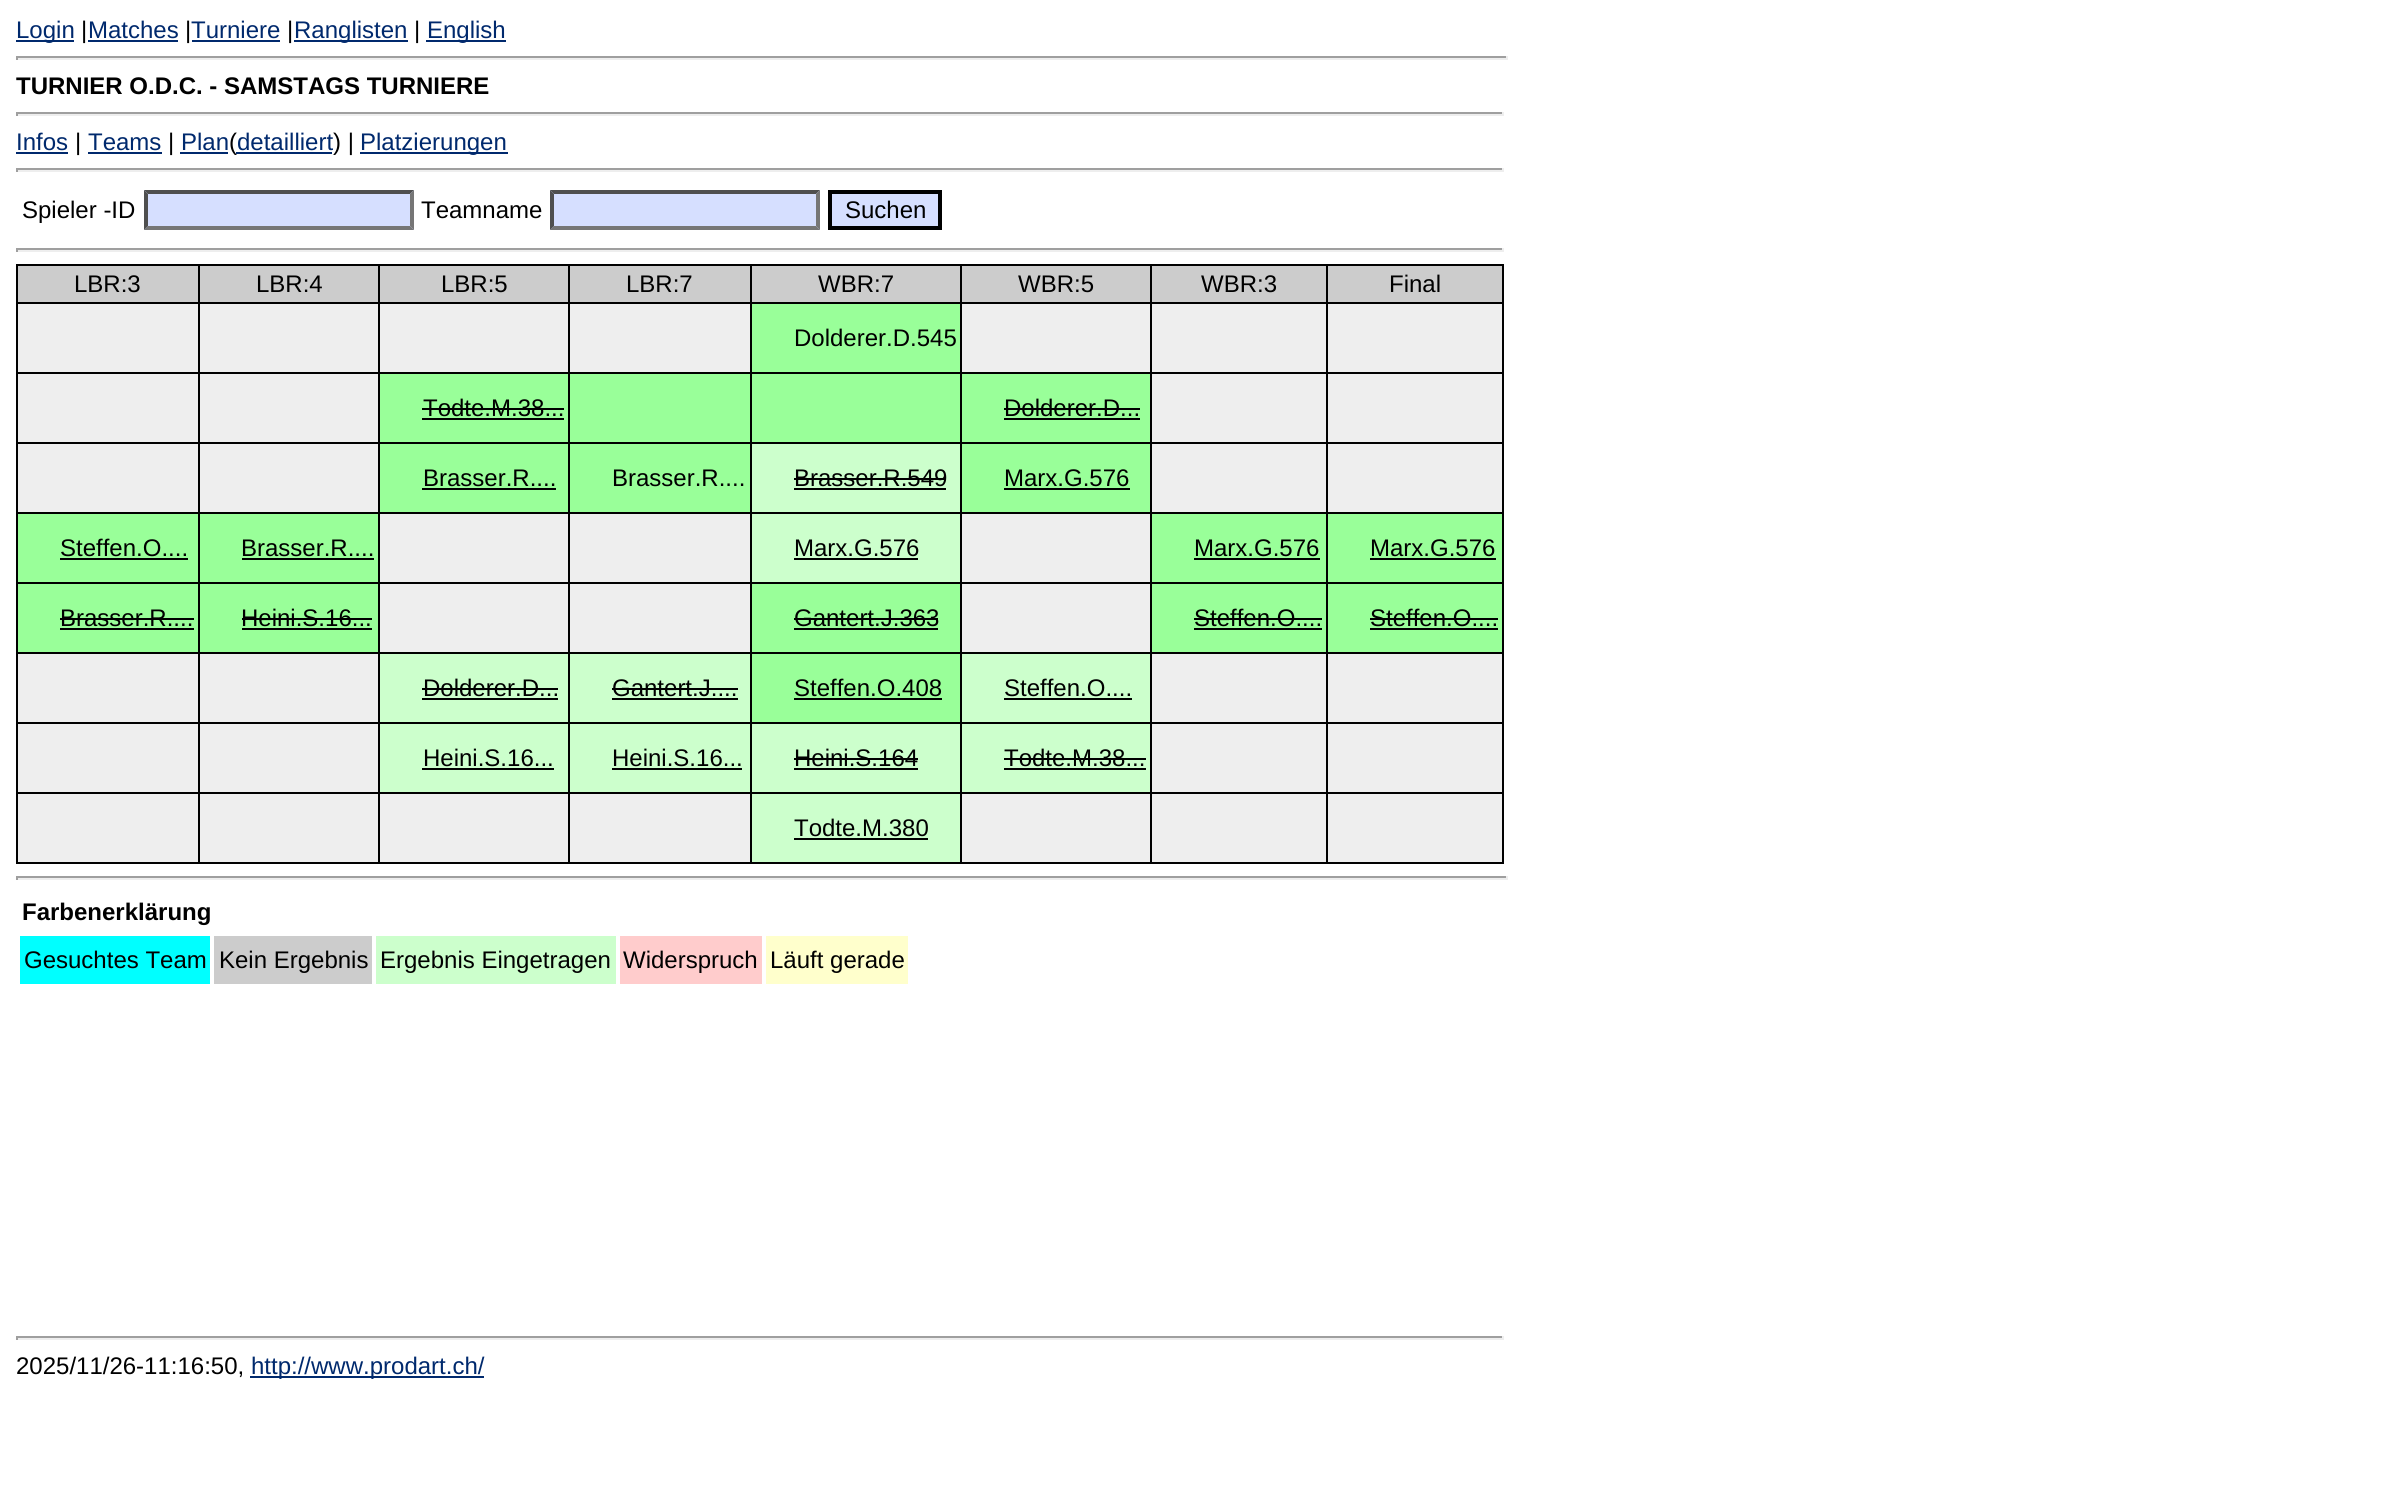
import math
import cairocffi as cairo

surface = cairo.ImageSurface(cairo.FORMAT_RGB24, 2399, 1489)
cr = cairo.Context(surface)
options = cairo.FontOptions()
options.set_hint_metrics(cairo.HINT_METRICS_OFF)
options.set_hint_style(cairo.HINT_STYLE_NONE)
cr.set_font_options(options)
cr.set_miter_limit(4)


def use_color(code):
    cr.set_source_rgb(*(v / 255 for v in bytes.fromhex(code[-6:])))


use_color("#ffffff")
cr.paint()
use_color("#00296d")
cr.rectangle(16, 40, 58, 2)
cr.fill()
cr.select_font_face("Liberation Sans")
cr.set_font_size(24)
cr.move_to(16, 38)
cr.show_text("Login")
use_color("#000000")
cr.move_to(81, 38)
cr.show_text("|")
use_color("#00296d")
cr.move_to(88, 38)
cr.show_text("Matches")
cr.rectangle(88, 40, 90, 2)
cr.fill()
use_color("#000000")
cr.move_to(185, 38)
cr.show_text("|")
use_color("#00296d")
cr.move_to(191, 38)
cr.show_text("Turniere")
cr.rectangle(192, 40, 88, 2)
cr.fill()
use_color("#000000")
cr.move_to(287, 38)
cr.show_text("|")
use_color("#00296d")
cr.rectangle(294, 40, 114, 2)
cr.fill()
cr.move_to(294, 38)
cr.show_text("Ranglisten")
use_color("#000000")
cr.move_to(414, 38)
cr.show_text("|")
use_color("#00296d")
cr.rectangle(426, 40, 80, 2)
cr.fill()
cr.move_to(427, 38)
cr.show_text("English")
use_color("#9f9f9f")
cr.rectangle(16, 56, 1492, 2)
cr.fill()
use_color("#eeeeee")
cr.rectangle(1506, 56, 2, 4)
cr.fill()
cr.rectangle(16, 58, 1492, 2)
cr.fill()
use_color("#9f9f9f")
cr.rectangle(16, 56, 2, 4)
cr.fill()
cr.select_font_face("Liberation Sans", cairo.FONT_SLANT_NORMAL, cairo.FONT_WEIGHT_BOLD)
use_color("#000000")
cr.move_to(16, 94)
cr.show_text("TURNIER O.D.C. - SAMSTAGS TURNIERE")
use_color("#9f9f9f")
cr.rectangle(16, 112, 1488, 2)
cr.fill()
use_color("#eeeeee")
cr.rectangle(1502, 112, 2, 4)
cr.fill()
cr.rectangle(16, 114, 1488, 2)
cr.fill()
use_color("#9f9f9f")
cr.rectangle(16, 112, 2, 4)
cr.fill()
cr.select_font_face("Liberation Sans")
use_color("#00296d")
cr.move_to(16, 150)
cr.show_text("Infos")
cr.rectangle(16, 152, 52, 2)
cr.fill()
use_color("#000000")
cr.move_to(75, 150)
cr.show_text("|")
use_color("#00296d")
cr.move_to(88, 150)
cr.show_text("Teams")
cr.rectangle(88, 152, 74, 2)
cr.fill()
use_color("#000000")
cr.move_to(168, 150)
cr.show_text("|")
use_color("#00296d")
cr.move_to(181, 150)
cr.show_text("Plan")
cr.rectangle(180, 152, 48, 2)
cr.fill()
use_color("#000000")
cr.move_to(229, 150)
cr.show_text("(")
use_color("#00296d")
cr.move_to(237, 150)
cr.show_text("detailliert")
cr.rectangle(236, 152, 96, 2)
cr.fill()
use_color("#000000")
cr.move_to(333, 150)
cr.show_text(") |")
use_color("#00296d")
cr.rectangle(360, 152, 148, 2)
cr.fill()
cr.move_to(360, 150)
cr.show_text("Platzierungen")
use_color("#9f9f9f")
cr.rectangle(16, 168, 1488, 2)
cr.fill()
use_color("#eeeeee")
cr.rectangle(1502, 168, 2, 4)
cr.fill()
cr.rectangle(16, 170, 1488, 2)
cr.fill()
use_color("#9f9f9f")
cr.rectangle(16, 168, 2, 4)
cr.fill()
use_color("#000000")
cr.move_to(22, 218)
cr.show_text("Spieler -ID")
use_color("#d6dfff")
cr.rectangle(144, 190, 270, 40)
cr.fill()
use_color("#4f4f4f")
cr.new_path()
cr.move_to(144, 190)
cr.line_to(414, 190)
cr.line_to(410, 194)
cr.line_to(148, 194)
cr.close_path()
cr.fill()
use_color("#767676")
cr.new_path()
cr.move_to(414, 190)
cr.line_to(414, 230)
cr.line_to(410, 226)
cr.line_to(410, 194)
cr.close_path()
cr.fill()
cr.new_path()
cr.move_to(414, 230)
cr.line_to(144, 230)
cr.line_to(148, 226)
cr.line_to(410, 226)
cr.close_path()
cr.fill()
use_color("#4f4f4f")
cr.new_path()
cr.move_to(144, 230)
cr.line_to(144, 190)
cr.line_to(148, 194)
cr.line_to(148, 226)
cr.close_path()
cr.fill()
use_color("#000000")
cr.move_to(421, 218)
cr.show_text("Teamname")
use_color("#d6dfff")
cr.rectangle(550, 190, 270, 40)
cr.fill()
use_color("#4f4f4f")
cr.new_path()
cr.move_to(550, 190)
cr.line_to(820, 190)
cr.line_to(816, 194)
cr.line_to(554, 194)
cr.close_path()
cr.fill()
use_color("#767676")
cr.new_path()
cr.move_to(820, 190)
cr.line_to(820, 230)
cr.line_to(816, 226)
cr.line_to(816, 194)
cr.close_path()
cr.fill()
cr.new_path()
cr.move_to(820, 230)
cr.line_to(550, 230)
cr.line_to(554, 226)
cr.line_to(816, 226)
cr.close_path()
cr.fill()
use_color("#4f4f4f")
cr.new_path()
cr.move_to(550, 230)
cr.line_to(550, 190)
cr.line_to(554, 194)
cr.line_to(554, 226)
cr.close_path()
cr.fill()
use_color("#d6dfff")
cr.rectangle(830, 192, 110, 36)
cr.fill_preserve()
use_color("#000000")
cr.set_line_width(4)
cr.stroke()
cr.move_to(845, 218)
cr.show_text("Suchen")
use_color("#9f9f9f")
cr.rectangle(16, 248, 1488, 2)
cr.fill()
use_color("#eeeeee")
cr.rectangle(1502, 248, 2, 4)
cr.fill()
cr.rectangle(16, 250, 1488, 2)
cr.fill()
use_color("#9f9f9f")
cr.rectangle(16, 248, 2, 4)
cr.fill()
use_color("#000000")
cr.rectangle(16, 264, 1488, 600)
cr.fill()
use_color("#cccccc")
cr.rectangle(18, 266, 180, 36)
cr.fill()
use_color("#000000")
cr.move_to(74, 292)
cr.show_text("LBR:3")
use_color("#cccccc")
cr.rectangle(200, 266, 178, 36)
cr.fill()
use_color("#000000")
cr.move_to(256, 292)
cr.show_text("LBR:4")
use_color("#cccccc")
cr.rectangle(380, 266, 188, 36)
cr.fill()
use_color("#000000")
cr.move_to(441, 292)
cr.show_text("LBR:5")
use_color("#cccccc")
cr.rectangle(570, 266, 180, 36)
cr.fill()
use_color("#000000")
cr.move_to(626, 292)
cr.show_text("LBR:7")
use_color("#cccccc")
cr.rectangle(752, 266, 208, 36)
cr.fill()
use_color("#000000")
cr.move_to(818, 292)
cr.show_text("WBR:7")
use_color("#cccccc")
cr.rectangle(962, 266, 188, 36)
cr.fill()
use_color("#000000")
cr.move_to(1018, 292)
cr.show_text("WBR:5")
use_color("#cccccc")
cr.rectangle(1152, 266, 174, 36)
cr.fill()
use_color("#000000")
cr.move_to(1201, 292)
cr.show_text("WBR:3")
use_color("#cccccc")
cr.rectangle(1328, 266, 174, 36)
cr.fill()
use_color("#000000")
cr.move_to(1389, 292)
cr.show_text("Final")
use_color("#eeeeee")
cr.rectangle(18, 304, 180, 68)
cr.fill()
cr.rectangle(200, 304, 178, 68)
cr.fill()
cr.rectangle(380, 304, 188, 68)
cr.fill()
cr.rectangle(570, 304, 180, 68)
cr.fill()
use_color("#99ff99")
cr.rectangle(752, 304, 208, 68)
cr.fill()
use_color("#000000")
cr.move_to(794, 346)
cr.show_text("Dolderer.D.545")
use_color("#eeeeee")
cr.rectangle(962, 304, 188, 68)
cr.fill()
cr.rectangle(1152, 304, 174, 68)
cr.fill()
cr.rectangle(1328, 304, 174, 68)
cr.fill()
cr.rectangle(18, 374, 180, 68)
cr.fill()
cr.rectangle(200, 374, 178, 68)
cr.fill()
use_color("#99ff99")
cr.rectangle(380, 374, 188, 68)
cr.fill()
use_color("#000000")
cr.move_to(423, 416)
cr.show_text("Todte.M.38...")
cr.rectangle(422, 418, 142, 2)
cr.fill()
cr.rectangle(422, 408, 142, 2)
cr.fill()
use_color("#99ff99")
cr.rectangle(570, 374, 180, 68)
cr.fill()
cr.rectangle(752, 374, 208, 68)
cr.fill()
cr.rectangle(962, 374, 188, 68)
cr.fill()
use_color("#000000")
cr.move_to(1004, 416)
cr.show_text("Dolderer.D...")
cr.rectangle(1004, 418, 136, 2)
cr.fill()
cr.rectangle(1004, 408, 136, 2)
cr.fill()
use_color("#eeeeee")
cr.rectangle(1152, 374, 174, 68)
cr.fill()
cr.rectangle(1328, 374, 174, 68)
cr.fill()
cr.rectangle(18, 444, 180, 68)
cr.fill()
cr.rectangle(200, 444, 178, 68)
cr.fill()
use_color("#99ff99")
cr.rectangle(380, 444, 188, 68)
cr.fill()
use_color("#000000")
cr.move_to(423, 486)
cr.show_text("Brasser.R....")
cr.rectangle(422, 488, 134, 2)
cr.fill()
use_color("#99ff99")
cr.rectangle(570, 444, 180, 68)
cr.fill()
use_color("#000000")
cr.move_to(612, 486)
cr.show_text("Brasser.R....")
use_color("#ccffcc")
cr.rectangle(752, 444, 208, 68)
cr.fill()
use_color("#000000")
cr.move_to(794, 486)
cr.show_text("Brasser.R.549")
cr.rectangle(794, 488, 152, 2)
cr.fill()
cr.rectangle(794, 478, 152, 2)
cr.fill()
use_color("#99ff99")
cr.rectangle(962, 444, 188, 68)
cr.fill()
use_color("#000000")
cr.move_to(1004, 486)
cr.show_text("Marx.G.576")
cr.rectangle(1004, 488, 126, 2)
cr.fill()
use_color("#eeeeee")
cr.rectangle(1152, 444, 174, 68)
cr.fill()
cr.rectangle(1328, 444, 174, 68)
cr.fill()
use_color("#99ff99")
cr.rectangle(18, 514, 180, 68)
cr.fill()
use_color("#000000")
cr.move_to(60, 556)
cr.show_text("Steffen.O....")
cr.rectangle(60, 558, 128, 2)
cr.fill()
use_color("#99ff99")
cr.rectangle(200, 514, 178, 68)
cr.fill()
use_color("#000000")
cr.move_to(241, 556)
cr.show_text("Brasser.R....")
cr.rectangle(242, 558, 132, 2)
cr.fill()
use_color("#eeeeee")
cr.rectangle(380, 514, 188, 68)
cr.fill()
cr.rectangle(570, 514, 180, 68)
cr.fill()
use_color("#ccffcc")
cr.rectangle(752, 514, 208, 68)
cr.fill()
use_color("#000000")
cr.move_to(794, 556)
cr.show_text("Marx.G.576")
cr.rectangle(794, 558, 124, 2)
cr.fill()
use_color("#eeeeee")
cr.rectangle(962, 514, 188, 68)
cr.fill()
use_color("#99ff99")
cr.rectangle(1152, 514, 174, 68)
cr.fill()
use_color("#000000")
cr.move_to(1194, 556)
cr.show_text("Marx.G.576")
cr.rectangle(1194, 558, 126, 2)
cr.fill()
use_color("#99ff99")
cr.rectangle(1328, 514, 174, 68)
cr.fill()
use_color("#000000")
cr.move_to(1370, 556)
cr.show_text("Marx.G.576")
cr.rectangle(1370, 558, 126, 2)
cr.fill()
use_color("#99ff99")
cr.rectangle(18, 584, 180, 68)
cr.fill()
use_color("#000000")
cr.move_to(60, 626)
cr.show_text("Brasser.R....")
cr.rectangle(60, 628, 134, 2)
cr.fill()
cr.rectangle(60, 618, 134, 2)
cr.fill()
use_color("#99ff99")
cr.rectangle(200, 584, 178, 68)
cr.fill()
use_color("#000000")
cr.move_to(241, 626)
cr.show_text("Heini.S.16...")
cr.rectangle(242, 628, 130, 2)
cr.fill()
cr.rectangle(242, 618, 130, 2)
cr.fill()
use_color("#eeeeee")
cr.rectangle(380, 584, 188, 68)
cr.fill()
cr.rectangle(570, 584, 180, 68)
cr.fill()
use_color("#99ff99")
cr.rectangle(752, 584, 208, 68)
cr.fill()
use_color("#000000")
cr.move_to(794, 626)
cr.show_text("Gantert.J.363")
cr.rectangle(794, 628, 144, 2)
cr.fill()
cr.rectangle(794, 618, 144, 2)
cr.fill()
use_color("#eeeeee")
cr.rectangle(962, 584, 188, 68)
cr.fill()
use_color("#99ff99")
cr.rectangle(1152, 584, 174, 68)
cr.fill()
use_color("#000000")
cr.move_to(1194, 626)
cr.show_text("Steffen.O....")
cr.rectangle(1194, 628, 128, 2)
cr.fill()
cr.rectangle(1194, 618, 128, 2)
cr.fill()
use_color("#99ff99")
cr.rectangle(1328, 584, 174, 68)
cr.fill()
use_color("#000000")
cr.move_to(1370, 626)
cr.show_text("Steffen.O....")
cr.rectangle(1370, 628, 128, 2)
cr.fill()
cr.rectangle(1370, 618, 128, 2)
cr.fill()
use_color("#eeeeee")
cr.rectangle(18, 654, 180, 68)
cr.fill()
cr.rectangle(200, 654, 178, 68)
cr.fill()
use_color("#ccffcc")
cr.rectangle(380, 654, 188, 68)
cr.fill()
use_color("#000000")
cr.move_to(423, 696)
cr.show_text("Dolderer.D...")
cr.rectangle(422, 698, 136, 2)
cr.fill()
cr.rectangle(422, 688, 136, 2)
cr.fill()
use_color("#ccffcc")
cr.rectangle(570, 654, 180, 68)
cr.fill()
use_color("#000000")
cr.move_to(612, 696)
cr.show_text("Gantert.J....")
cr.rectangle(612, 698, 126, 2)
cr.fill()
cr.rectangle(612, 688, 126, 2)
cr.fill()
use_color("#99ff99")
cr.rectangle(752, 654, 208, 68)
cr.fill()
use_color("#000000")
cr.move_to(794, 696)
cr.show_text("Steffen.O.408")
cr.rectangle(794, 698, 148, 2)
cr.fill()
use_color("#ccffcc")
cr.rectangle(962, 654, 188, 68)
cr.fill()
use_color("#000000")
cr.move_to(1004, 696)
cr.show_text("Steffen.O....")
cr.rectangle(1004, 698, 128, 2)
cr.fill()
use_color("#eeeeee")
cr.rectangle(1152, 654, 174, 68)
cr.fill()
cr.rectangle(1328, 654, 174, 68)
cr.fill()
cr.rectangle(18, 724, 180, 68)
cr.fill()
cr.rectangle(200, 724, 178, 68)
cr.fill()
use_color("#ccffcc")
cr.rectangle(380, 724, 188, 68)
cr.fill()
use_color("#000000")
cr.move_to(423, 766)
cr.show_text("Heini.S.16...")
cr.rectangle(422, 768, 132, 2)
cr.fill()
use_color("#ccffcc")
cr.rectangle(570, 724, 180, 68)
cr.fill()
use_color("#000000")
cr.move_to(612, 766)
cr.show_text("Heini.S.16...")
cr.rectangle(612, 768, 130, 2)
cr.fill()
use_color("#ccffcc")
cr.rectangle(752, 724, 208, 68)
cr.fill()
use_color("#000000")
cr.move_to(794, 766)
cr.show_text("Heini.S.164")
cr.rectangle(794, 768, 124, 2)
cr.fill()
cr.rectangle(794, 758, 124, 2)
cr.fill()
use_color("#ccffcc")
cr.rectangle(962, 724, 188, 68)
cr.fill()
use_color("#000000")
cr.move_to(1004, 766)
cr.show_text("Todte.M.38...")
cr.rectangle(1004, 768, 142, 2)
cr.fill()
cr.rectangle(1004, 758, 142, 2)
cr.fill()
use_color("#eeeeee")
cr.rectangle(1152, 724, 174, 68)
cr.fill()
cr.rectangle(1328, 724, 174, 68)
cr.fill()
cr.rectangle(18, 794, 180, 68)
cr.fill()
cr.rectangle(200, 794, 178, 68)
cr.fill()
cr.rectangle(380, 794, 188, 68)
cr.fill()
cr.rectangle(570, 794, 180, 68)
cr.fill()
use_color("#ccffcc")
cr.rectangle(752, 794, 208, 68)
cr.fill()
use_color("#000000")
cr.move_to(794, 836)
cr.show_text("Todte.M.380")
cr.rectangle(794, 838, 134, 2)
cr.fill()
use_color("#eeeeee")
cr.rectangle(962, 794, 188, 68)
cr.fill()
cr.rectangle(1152, 794, 174, 68)
cr.fill()
cr.rectangle(1328, 794, 174, 68)
cr.fill()
use_color("#9f9f9f")
cr.rectangle(16, 876, 1492, 2)
cr.fill()
use_color("#eeeeee")
cr.rectangle(1506, 876, 2, 4)
cr.fill()
cr.rectangle(16, 878, 1492, 2)
cr.fill()
use_color("#9f9f9f")
cr.rectangle(16, 876, 2, 4)
cr.fill()
cr.select_font_face("Liberation Sans", cairo.FONT_SLANT_NORMAL, cairo.FONT_WEIGHT_BOLD)
use_color("#000000")
cr.move_to(22, 920)
cr.show_text("Farbenerklärung")
use_color("#00ffff")
cr.rectangle(20, 936, 190, 48)
cr.fill()
cr.select_font_face("Liberation Sans")
use_color("#000000")
cr.move_to(24, 968)
cr.show_text("Gesuchtes Team")
use_color("#cccccc")
cr.rectangle(214, 936, 158, 48)
cr.fill()
use_color("#000000")
cr.move_to(219, 968)
cr.show_text("Kein Ergebnis")
use_color("#ccffcc")
cr.rectangle(376, 936, 240, 48)
cr.fill()
use_color("#000000")
cr.move_to(380, 968)
cr.show_text("Ergebnis Eingetragen")
use_color("#ffcccc")
cr.rectangle(620, 936, 142, 48)
cr.fill()
use_color("#000000")
cr.move_to(623, 968)
cr.show_text("Widerspruch")
use_color("#ffffcc")
cr.rectangle(766, 936, 142, 48)
cr.fill()
use_color("#000000")
cr.move_to(770, 968)
cr.show_text("Läuft gerade")
use_color("#9f9f9f")
cr.rectangle(16, 1336, 1488, 2)
cr.fill()
use_color("#eeeeee")
cr.rectangle(1502, 1336, 2, 4)
cr.fill()
cr.rectangle(16, 1338, 1488, 2)
cr.fill()
use_color("#9f9f9f")
cr.rectangle(16, 1336, 2, 4)
cr.fill()
use_color("#000000")
cr.move_to(16, 1374)
cr.show_text("2025/11/26-11:16:50,")
use_color("#00296d")
cr.rectangle(250, 1376, 234, 2)
cr.fill()
cr.move_to(251, 1374)
cr.show_text("http://www.prodart.ch/")
surface.write_to_png("result.png")
